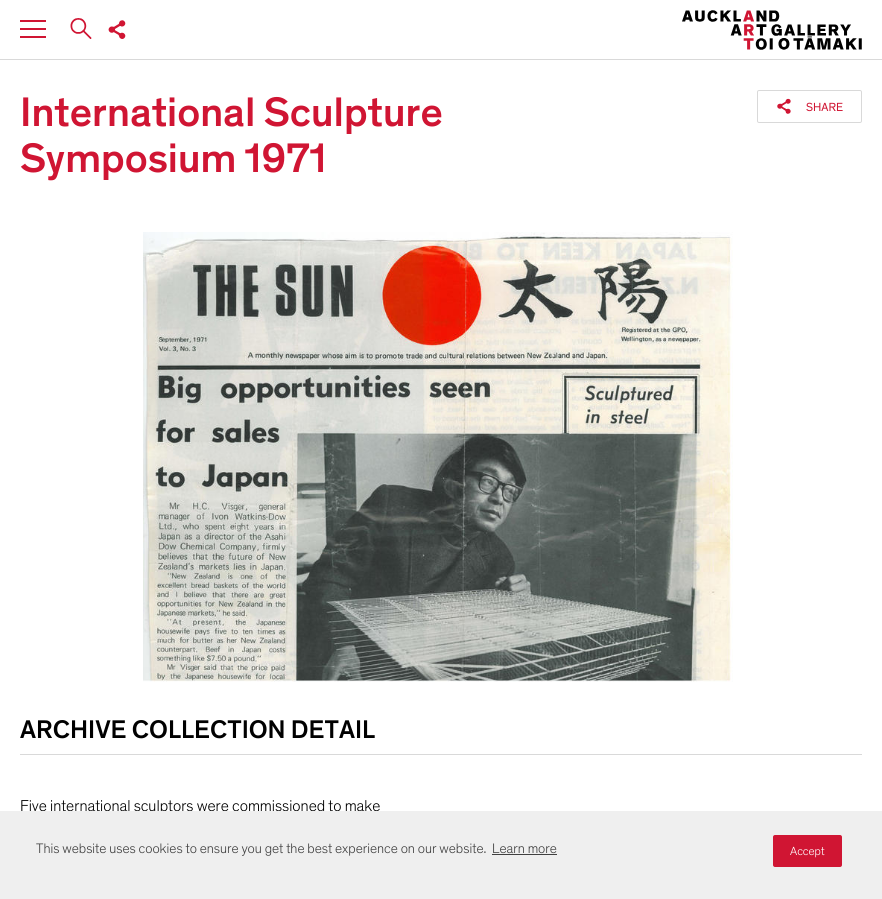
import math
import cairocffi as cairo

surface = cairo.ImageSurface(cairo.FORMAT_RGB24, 882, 899)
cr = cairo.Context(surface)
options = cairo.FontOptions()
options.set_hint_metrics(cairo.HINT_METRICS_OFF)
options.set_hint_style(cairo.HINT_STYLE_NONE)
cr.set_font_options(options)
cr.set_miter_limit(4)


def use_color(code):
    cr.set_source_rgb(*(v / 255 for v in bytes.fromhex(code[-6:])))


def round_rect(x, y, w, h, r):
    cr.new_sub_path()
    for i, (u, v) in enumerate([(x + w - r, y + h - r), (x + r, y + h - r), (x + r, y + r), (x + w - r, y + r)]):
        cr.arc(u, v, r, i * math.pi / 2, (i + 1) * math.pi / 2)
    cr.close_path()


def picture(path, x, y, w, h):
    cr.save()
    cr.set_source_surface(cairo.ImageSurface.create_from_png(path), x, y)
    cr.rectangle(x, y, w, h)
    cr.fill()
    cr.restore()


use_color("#ffffff")
cr.paint()
use_color("#d9d9d9")
cr.rectangle(0, 59, 882, 1)
cr.fill()
use_color("#d01533")
cr.rectangle(20, 20, 26, 2)
cr.fill()
cr.rectangle(20, 28, 26, 2)
cr.fill()
cr.rectangle(20, 36, 26, 2)
cr.fill()
picture("img1.png", 70, 18, 22, 21)
picture("img2.png", 108, 20, 18, 19)
picture("img3.png", 682, 10, 180, 40)
cr.select_font_face("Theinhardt")
cr.set_font_size(42)
cr.move_to(20, 126)
cr.show_text("International Sculpture")
cr.move_to(20, 172)
cr.show_text("Symposium 1971")
round_rect(757.5, 90.5, 104, 32, 1.5)
use_color("#d9d9d9")
cr.set_line_width(1)
cr.stroke()
picture("img4.png", 777, 98, 14, 16)
cr.select_font_face("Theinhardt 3")
cr.set_font_size(12)
use_color("#d01533")
cr.move_to(806, 111)
cr.show_text("SHARE")
picture("img5.png", 143, 232, 590, 450)
use_color("#d9d9d9")
cr.rectangle(20, 754, 842, 1)
cr.fill()
cr.select_font_face("Theinhardt")
cr.set_font_size(26)
use_color("#000000")
cr.move_to(20, 738)
cr.show_text("ARCHIVE COLLECTION DETAIL")
cr.select_font_face("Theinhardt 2")
cr.set_font_size(16)
cr.move_to(20, 811)
cr.show_text("Five international sculptors were commissioned to make")
use_color("#efefef")
cr.rectangle(0, 811, 882, 88)
cr.fill()
cr.set_font_size(14)
use_color("#404040")
cr.move_to(36, 853)
cr.show_text("This website uses cookies to ensure you get the best experience on our website.")
cr.move_to(492, 853)
cr.show_text("Learn more")
cr.rectangle(492, 854, 65, 1)
cr.fill()
use_color("#d01533")
round_rect(773, 835, 69, 32, 2)
cr.fill()
cr.set_font_size(12)
use_color("#ffffff")
cr.move_to(790, 855)
cr.show_text("Accept")
surface.write_to_png("result.png")
